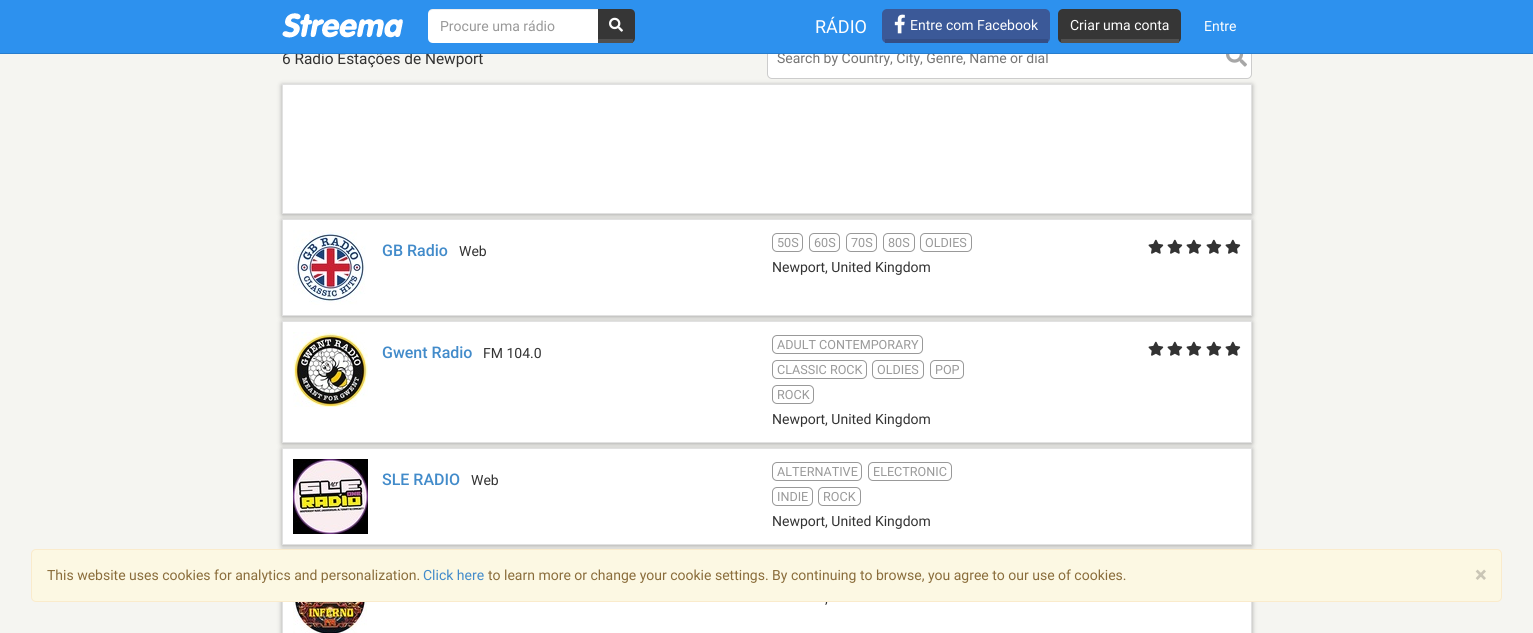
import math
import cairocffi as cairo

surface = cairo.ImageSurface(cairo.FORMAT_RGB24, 1533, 633)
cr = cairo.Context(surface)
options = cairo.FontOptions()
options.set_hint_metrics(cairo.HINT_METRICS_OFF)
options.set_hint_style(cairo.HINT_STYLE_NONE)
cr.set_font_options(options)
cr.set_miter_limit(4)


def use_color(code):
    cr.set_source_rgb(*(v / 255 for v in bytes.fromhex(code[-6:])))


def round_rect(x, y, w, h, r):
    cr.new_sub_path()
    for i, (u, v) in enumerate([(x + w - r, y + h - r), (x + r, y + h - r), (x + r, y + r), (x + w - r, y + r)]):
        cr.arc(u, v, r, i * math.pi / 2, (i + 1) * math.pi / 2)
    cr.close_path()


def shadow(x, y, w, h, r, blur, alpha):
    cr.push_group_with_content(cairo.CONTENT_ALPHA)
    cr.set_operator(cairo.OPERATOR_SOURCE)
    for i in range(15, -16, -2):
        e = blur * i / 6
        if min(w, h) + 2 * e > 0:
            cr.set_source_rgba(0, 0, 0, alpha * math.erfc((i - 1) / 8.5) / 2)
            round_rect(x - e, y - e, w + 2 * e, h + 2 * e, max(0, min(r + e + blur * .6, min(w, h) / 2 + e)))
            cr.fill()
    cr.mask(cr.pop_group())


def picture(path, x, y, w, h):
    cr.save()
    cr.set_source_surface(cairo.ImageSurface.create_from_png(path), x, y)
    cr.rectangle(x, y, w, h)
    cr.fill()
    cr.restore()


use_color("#f5f5f1")
cr.paint()
cr.select_font_face("Roboto")
cr.set_font_size(15.4)
use_color("#333333")
cr.move_to(282, 64)
cr.show_text("6 Radio Estações de Newport")
use_color("#ffffff")
round_rect(767.5, 38.5, 484, 40, 4.5)
cr.fill_preserve()
use_color("#cccccc")
cr.set_line_width(1)
cr.stroke()
cr.set_font_size(14)
use_color("#757575")
cr.move_to(777, 63)
cr.show_text("Search by Country, City, Genre, Name or dial")
use_color("#2d91ee")
cr.rectangle(0, 0, 1533, 53)
cr.fill()
use_color("#277dcd")
cr.rectangle(0, 53, 1533, 1)
cr.fill()
picture("img1.png", 282, 13, 121, 25)
use_color("#363636")
cr.new_path()
cr.move_to(597, 9)
cr.line_to(630, 9)
cr.curve_to(633, 9, 635, 11, 635, 14)
cr.line_to(635, 38)
cr.curve_to(635, 41, 633, 43, 630, 43)
cr.line_to(597, 43)
cr.close_path()
cr.fill()
use_color("#505050")
cr.rectangle(597, 39, 36, 4)
cr.fill()
use_color("#ffffff")
cr.new_path()
cr.move_to(433, 9)
cr.line_to(598, 9)
cr.line_to(598, 43)
cr.line_to(433, 43)
cr.curve_to(430, 43, 428, 41, 428, 38)
cr.line_to(428, 14)
cr.curve_to(428, 11, 430, 9, 433, 9)
cr.close_path()
cr.fill()
cr.set_source_rgba(0, 0, 0, 0.07)
cr.new_path()
cr.move_to(433, 10)
cr.line_to(598, 10)
cr.line_to(598, 9)
cr.line_to(433, 9)
cr.curve_to(430, 9, 428, 11, 428, 14)
cr.line_to(428, 15)
cr.curve_to(428, 12, 430, 10, 433, 10)
cr.close_path()
cr.fill()
use_color("#999999")
cr.move_to(440, 31)
cr.show_text("Procure uma rádio")
picture("img2.png", 609, 17, 14, 15)
cr.set_font_size(18)
use_color("#fefefe")
cr.move_to(815, 33)
cr.show_text("RÁDIO")
use_color("#3b5998")
round_rect(882, 9, 168, 34, 5)
cr.fill()
use_color("#344e86")
cr.rectangle(885, 39, 163, 4)
cr.fill()
picture("img3.png", 894, 14, 11, 20)
cr.set_font_size(14)
use_color("#fefefe")
cr.move_to(910, 30)
cr.show_text("Entre com Facebook")
use_color("#363636")
round_rect(1058, 9, 123, 34, 5)
cr.fill()
use_color("#505050")
cr.rectangle(1061, 39, 118, 4)
cr.fill()
use_color("#fefefe")
cr.move_to(1070, 30)
cr.show_text("Criar uma conta")
cr.move_to(1204, 31)
cr.show_text("Entre")
picture("img4.png", 1226, 54, 21, 13)
use_color("#8c8c8c")
shadow(282, 85, 970, 130, 0, 2.5, 0.75)
use_color("#ffffff")
cr.rectangle(282.5, 84.5, 969, 129)
cr.fill_preserve()
use_color("#e1e1e1")
cr.stroke()
use_color("#8c8c8c")
shadow(282, 220, 970, 97, 0, 2.5, 0.75)
use_color("#ffffff")
cr.rectangle(282.5, 219.5, 969, 96)
cr.fill_preserve()
use_color("#e1e1e1")
cr.stroke()
picture("img5.png", 293, 230, 73, 75)
cr.select_font_face("Roboto Medium")
cr.set_font_size(16)
use_color("#428bca")
cr.move_to(382, 256)
cr.show_text("GB Radio")
cr.select_font_face("Roboto")
cr.set_font_size(14)
use_color("#333333")
cr.move_to(459, 256)
cr.show_text("Web")
round_rect(772.5, 233.5, 30, 18, 4.5)
use_color("#999999")
cr.stroke()
cr.set_font_size(12.6)
cr.move_to(777, 247)
cr.show_text("50S")
round_rect(809.5, 233.5, 30, 18, 4.5)
cr.stroke()
cr.move_to(814, 247)
cr.show_text("60S")
round_rect(846.5, 233.5, 30, 18, 4.5)
cr.stroke()
cr.move_to(851, 247)
cr.show_text("70S")
round_rect(883.5, 233.5, 31, 18, 4.5)
cr.stroke()
cr.move_to(888, 247)
cr.show_text("80S")
round_rect(920.5, 233.5, 51, 18, 4.5)
cr.stroke()
cr.move_to(925, 247)
cr.show_text("OLDIES")
cr.set_font_size(14)
use_color("#333333")
cr.move_to(772, 272)
cr.show_text("Newport, United Kingdom")
picture("img6.png", 1148, 239, 16, 15)
picture("img6.png", 1167, 239, 16, 15)
picture("img6.png", 1186, 239, 16, 15)
picture("img6.png", 1206, 239, 16, 15)
picture("img6.png", 1225, 239, 16, 15)
use_color("#8c8c8c")
shadow(282, 322, 970, 122, 0, 2.5, 0.75)
use_color("#ffffff")
cr.rectangle(282.5, 321.5, 969, 121)
cr.fill_preserve()
use_color("#e1e1e1")
cr.stroke()
picture("img7.png", 293, 332, 75, 75)
cr.select_font_face("Roboto Medium")
cr.set_font_size(16)
use_color("#428bca")
cr.move_to(382, 358)
cr.show_text("Gwent Radio")
cr.select_font_face("Roboto")
cr.set_font_size(14)
use_color("#333333")
cr.move_to(483, 358)
cr.show_text("FM 104.0")
round_rect(772.5, 335.5, 150, 18, 4.5)
use_color("#999999")
cr.stroke()
cr.set_font_size(12.6)
cr.move_to(777, 349)
cr.show_text("ADULT CONTEMPORARY")
round_rect(772.5, 360.5, 94, 18, 4.5)
cr.stroke()
cr.move_to(777, 374)
cr.show_text("CLASSIC ROCK")
round_rect(872.5, 360.5, 51, 18, 4.5)
cr.stroke()
cr.move_to(877, 374)
cr.show_text("OLDIES")
round_rect(930.5, 360.5, 33, 18, 4.5)
cr.stroke()
cr.move_to(935, 374)
cr.show_text("POP")
round_rect(772.5, 385.5, 41, 18, 4.5)
cr.stroke()
cr.move_to(777, 399)
cr.show_text("ROCK")
cr.set_font_size(14)
use_color("#333333")
cr.move_to(772, 424)
cr.show_text("Newport, United Kingdom")
picture("img6.png", 1148, 341, 16, 15)
picture("img6.png", 1167, 341, 16, 15)
picture("img6.png", 1186, 341, 16, 15)
picture("img6.png", 1206, 341, 16, 15)
picture("img6.png", 1225, 341, 16, 15)
use_color("#8c8c8c")
shadow(282, 449, 970, 97, 0, 2.5, 0.75)
use_color("#ffffff")
cr.rectangle(282.5, 448.5, 969, 96)
cr.fill_preserve()
use_color("#e1e1e1")
cr.stroke()
picture("img8.png", 293, 459, 75, 75)
cr.select_font_face("Roboto Medium")
cr.set_font_size(16)
use_color("#428bca")
cr.move_to(382, 485)
cr.show_text("SLE RADIO")
cr.select_font_face("Roboto")
cr.set_font_size(14)
use_color("#333333")
cr.move_to(471, 485)
cr.show_text("Web")
round_rect(772.5, 462.5, 89, 18, 4.5)
use_color("#999999")
cr.stroke()
cr.set_font_size(12.6)
cr.move_to(777, 476)
cr.show_text("ALTERNATIVE")
round_rect(868.5, 462.5, 83, 18, 4.5)
cr.stroke()
cr.move_to(873, 476)
cr.show_text("ELECTRONIC")
round_rect(772.5, 487.5, 40, 18, 4.5)
cr.stroke()
cr.move_to(777, 501)
cr.show_text("INDIE")
round_rect(818.5, 487.5, 42, 18, 4.5)
cr.stroke()
cr.move_to(823, 501)
cr.show_text("ROCK")
cr.set_font_size(14)
use_color("#333333")
cr.move_to(772, 526)
cr.show_text("Newport, United Kingdom")
use_color("#8c8c8c")
shadow(282, 551, 970, 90, 0, 2.5, 0.75)
use_color("#ffffff")
cr.rectangle(283, 602, 968, 31)
cr.fill()
cr.rectangle(282.5, 550.5, 969, 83)
use_color("#e1e1e1")
cr.stroke()
picture("img9.png", 293, 602, 74, 31)
use_color("#333333")
cr.move_to(825, 603)
cr.show_text(",")
use_color("#fcf8e3")
round_rect(31.5, 549.5, 1470, 52, 4.5)
cr.fill_preserve()
use_color("#faebcc")
cr.stroke()
use_color("#8a6d3b")
cr.move_to(47, 580)
cr.show_text("This website uses cookies for analytics and personalization.")
use_color("#428bca")
cr.move_to(423, 580)
cr.show_text("Click here")
use_color("#8a6d3b")
cr.move_to(488, 580)
cr.show_text("to learn more or change your cookie settings. By continuing to browse, you agree to our use of cookies.")
cr.select_font_face("Roboto", cairo.FONT_SLANT_NORMAL, cairo.FONT_WEIGHT_BOLD)
cr.set_font_size(21)
use_color("#cac6b6")
cr.move_to(1475, 582)
cr.show_text("×")
surface.write_to_png("result.png")
